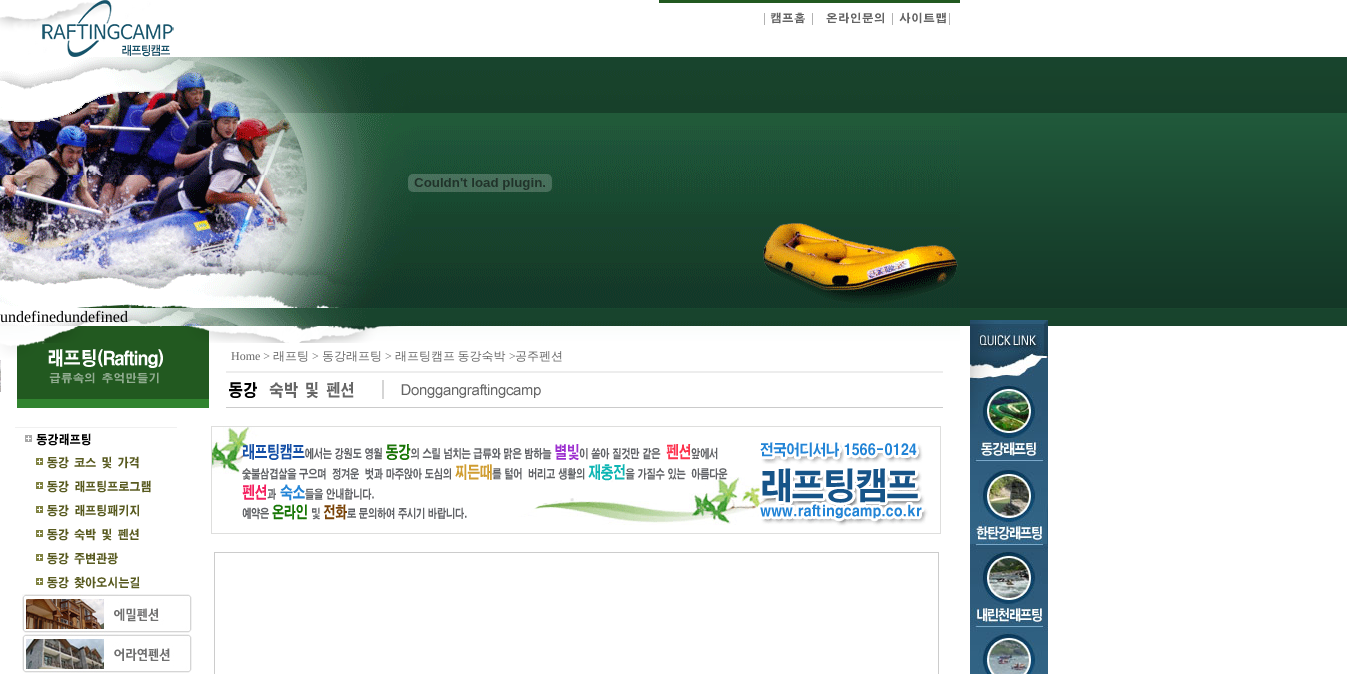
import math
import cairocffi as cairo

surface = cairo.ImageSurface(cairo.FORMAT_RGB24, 1347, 674)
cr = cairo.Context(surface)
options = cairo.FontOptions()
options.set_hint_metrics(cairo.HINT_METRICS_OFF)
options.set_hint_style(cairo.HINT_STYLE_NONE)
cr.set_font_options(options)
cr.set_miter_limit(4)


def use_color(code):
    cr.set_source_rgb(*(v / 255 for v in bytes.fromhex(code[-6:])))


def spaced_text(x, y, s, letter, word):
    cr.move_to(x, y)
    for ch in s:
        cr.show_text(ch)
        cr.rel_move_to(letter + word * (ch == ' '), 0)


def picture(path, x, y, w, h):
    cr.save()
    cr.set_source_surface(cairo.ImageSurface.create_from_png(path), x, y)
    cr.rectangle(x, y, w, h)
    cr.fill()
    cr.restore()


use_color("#ffffff")
cr.paint()
picture("img1.png", 0, 0, 174, 57)
picture("img2.png", 659, 0, 301, 25)
picture("img3.png", 960, 57, 387, 269)
picture("img4.png", 0, 57, 960, 269)
picture("img5.png", 408, 174, 144, 18)
cr.select_font_face("Liberation Serif")
cr.set_font_size(16)
use_color("#000000")
cr.move_to(0, 322)
cr.show_text("undefinedundefined")
picture("img6.png", 15, 427, 162, 19)
picture("img7.png", 36, 456, 103, 13)
picture("img8.png", 36, 480, 115, 13)
picture("img9.png", 36, 504, 104, 13)
picture("img10.png", 36, 528, 103, 13)
picture("img11.png", 36, 552, 82, 13)
picture("img12.png", 36, 576, 104, 13)
picture("img13.png", 22, 594, 170, 40)
picture("img14.png", 22, 634, 170, 39)
picture("img15.png", 211, 426, 730, 108)
use_color("#cccccc")
cr.rectangle(214, 552, 725, 122)
cr.fill()
use_color("#ffffff")
cr.rectangle(215, 553, 723, 121)
cr.fill()
picture("img16.png", 970, 320, 78, 354)
picture("img17.png", 0, 326, 960, 17)
picture("img18.png", 0, 343, 209, 65)
cr.set_font_size(12)
use_color("#666666")
cr.move_to(231, 360)
cr.show_text("Home >")
cr.select_font_face("WenQuanYi Zen Hei Medium")
cr.move_to(273, 360)
cr.show_text("래프팅")
cr.select_font_face("Liberation Serif")
cr.move_to(312, 360)
cr.show_text(">")
cr.select_font_face("WenQuanYi Zen Hei Medium")
cr.move_to(322, 360)
cr.show_text("동강래프팅")
cr.select_font_face("Liberation Serif")
cr.move_to(385, 360)
cr.show_text(">")
cr.select_font_face("WenQuanYi Zen Hei Medium")
spaced_text(395, 360, "래프팅캠프 동강숙박", 0, -1)
cr.select_font_face("Liberation Serif")
cr.move_to(509, 360)
cr.show_text(">")
cr.select_font_face("WenQuanYi Zen Hei Medium")
cr.move_to(515, 360)
cr.show_text("공주펜션")
picture("img19.png", 226, 371, 717, 37)
surface.write_to_png("result.png")
